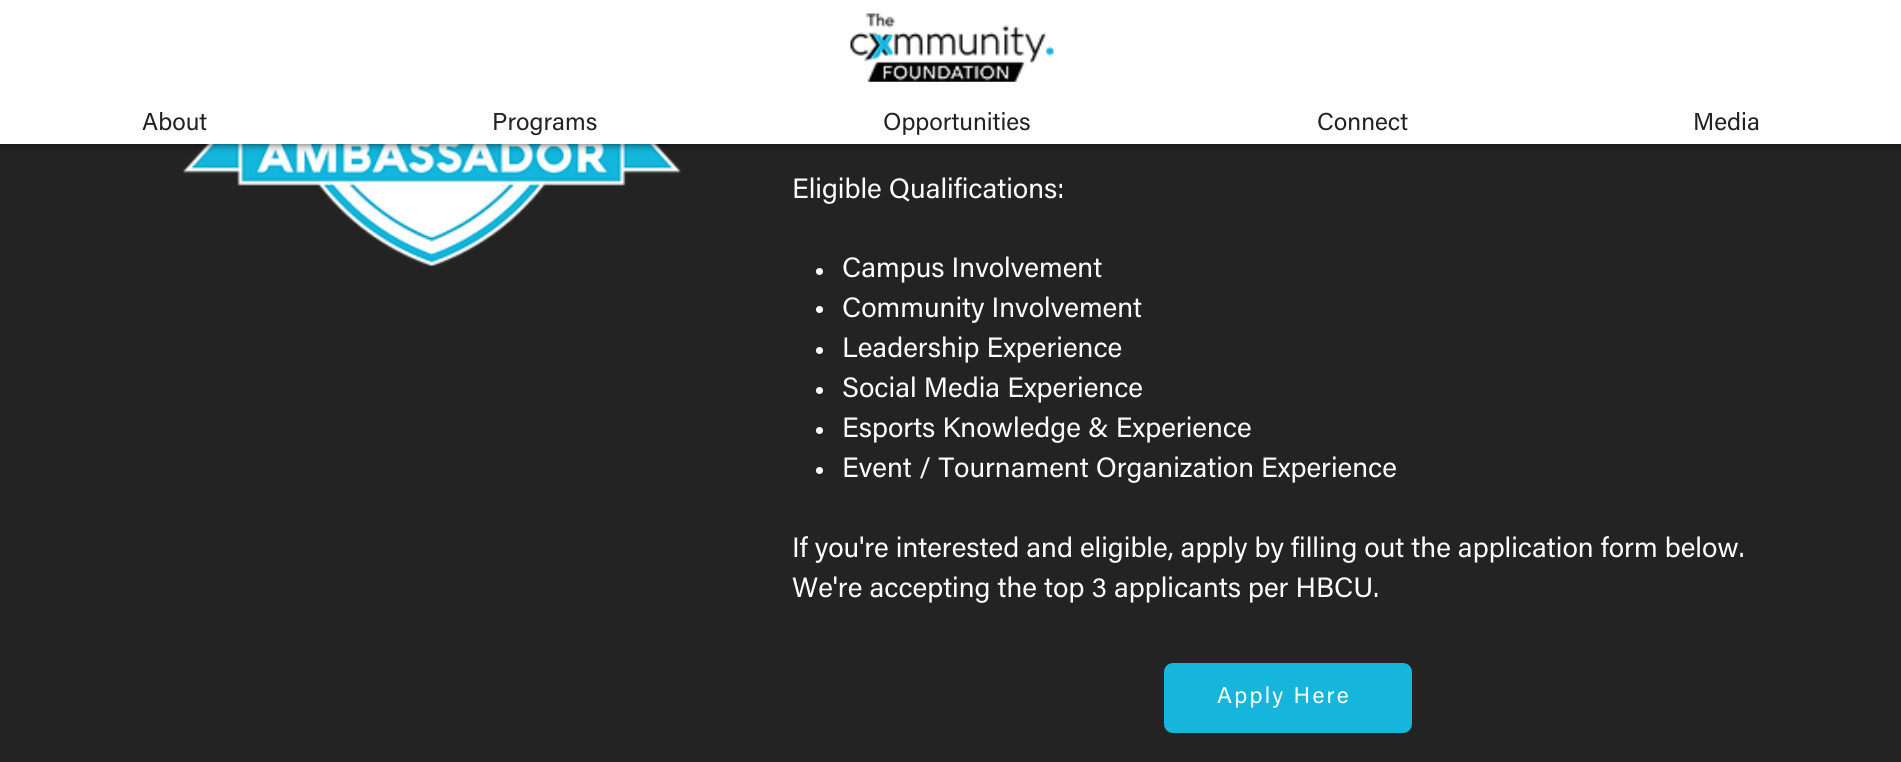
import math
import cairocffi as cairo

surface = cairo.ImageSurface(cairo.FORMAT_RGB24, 1901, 762)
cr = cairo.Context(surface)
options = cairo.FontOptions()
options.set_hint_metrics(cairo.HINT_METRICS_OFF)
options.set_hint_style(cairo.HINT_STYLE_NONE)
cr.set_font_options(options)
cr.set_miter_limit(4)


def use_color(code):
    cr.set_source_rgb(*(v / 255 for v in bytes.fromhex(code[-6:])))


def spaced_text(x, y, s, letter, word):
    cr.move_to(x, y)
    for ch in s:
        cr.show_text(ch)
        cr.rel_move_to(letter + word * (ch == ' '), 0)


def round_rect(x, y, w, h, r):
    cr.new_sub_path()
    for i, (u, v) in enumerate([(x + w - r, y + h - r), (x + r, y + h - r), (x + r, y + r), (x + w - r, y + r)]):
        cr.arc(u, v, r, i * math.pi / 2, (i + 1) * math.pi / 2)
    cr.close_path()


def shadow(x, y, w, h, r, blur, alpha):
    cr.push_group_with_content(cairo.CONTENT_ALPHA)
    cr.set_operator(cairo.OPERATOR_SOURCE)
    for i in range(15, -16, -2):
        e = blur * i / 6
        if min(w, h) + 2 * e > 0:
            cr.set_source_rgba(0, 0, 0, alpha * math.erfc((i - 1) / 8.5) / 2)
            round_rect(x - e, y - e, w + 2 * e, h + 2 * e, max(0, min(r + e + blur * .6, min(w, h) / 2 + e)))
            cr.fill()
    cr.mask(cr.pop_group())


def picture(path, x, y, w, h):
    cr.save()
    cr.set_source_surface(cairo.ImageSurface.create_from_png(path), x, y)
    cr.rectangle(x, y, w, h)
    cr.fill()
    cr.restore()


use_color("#242323")
cr.paint()
picture("img2.png", 183, 144, 498, 123)
use_color("#000000")
shadow(0, 0, 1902, 144, 0, 4.5, 0.7)
use_color("#ffffff")
cr.rectangle(0, 0, 1901, 144)
cr.fill()
picture("img1.png", 850, 13, 204, 69)
cr.select_font_face("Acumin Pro")
cr.set_font_size(24.5)
use_color("#222222")
cr.move_to(142, 130)
cr.show_text("About")
cr.move_to(492, 130)
cr.show_text("Programs")
cr.move_to(883, 130)
cr.show_text("Opportunities")
cr.move_to(1317, 130)
cr.show_text("Connect")
cr.move_to(1693, 130)
cr.show_text("Media")
cr.set_font_size(28)
use_color("#ffffff")
cr.move_to(792, 198)
cr.show_text("Eligible Qualifications:")
cr.new_path()
cr.arc(819.5, 271.5, 3.5, 0, 2 * math.pi)
cr.fill()
cr.move_to(842, 277)
cr.show_text("Campus Involvement")
cr.new_path()
cr.arc(819.5, 309.5, 3.5, 0, 2 * math.pi)
cr.fill()
cr.move_to(842, 317)
cr.show_text("Community Involvement")
cr.new_path()
cr.arc(819.5, 350.5, 3.5, 0, 2 * math.pi)
cr.fill()
cr.move_to(842, 357)
cr.show_text("Leadership Experience")
cr.new_path()
cr.arc(819.5, 390.5, 3.5, 0, 2 * math.pi)
cr.fill()
cr.move_to(842, 397)
cr.show_text("Social Media Experience")
cr.new_path()
cr.arc(819.5, 430.5, 3.5, 0, 2 * math.pi)
cr.fill()
cr.move_to(842, 437)
cr.show_text("Esports Knowledge & Experience")
cr.new_path()
cr.arc(819.5, 470.5, 3.5, 0, 2 * math.pi)
cr.fill()
cr.move_to(842, 477)
cr.show_text("Event / Tournament Organization Experience")
cr.move_to(792, 557)
cr.show_text("If you're interested and eligible, apply by filling out the application form below.")
cr.move_to(792, 597)
cr.show_text("We're accepting the top 3 applicants per HBCU.")
use_color("#16b5db")
round_rect(1164, 663, 248, 70, 9)
cr.fill()
cr.set_font_size(22.75)
use_color("#ffffff")
spaced_text(1217, 703, "Apply Here", 2.25, 0)
surface.write_to_png("result.png")
